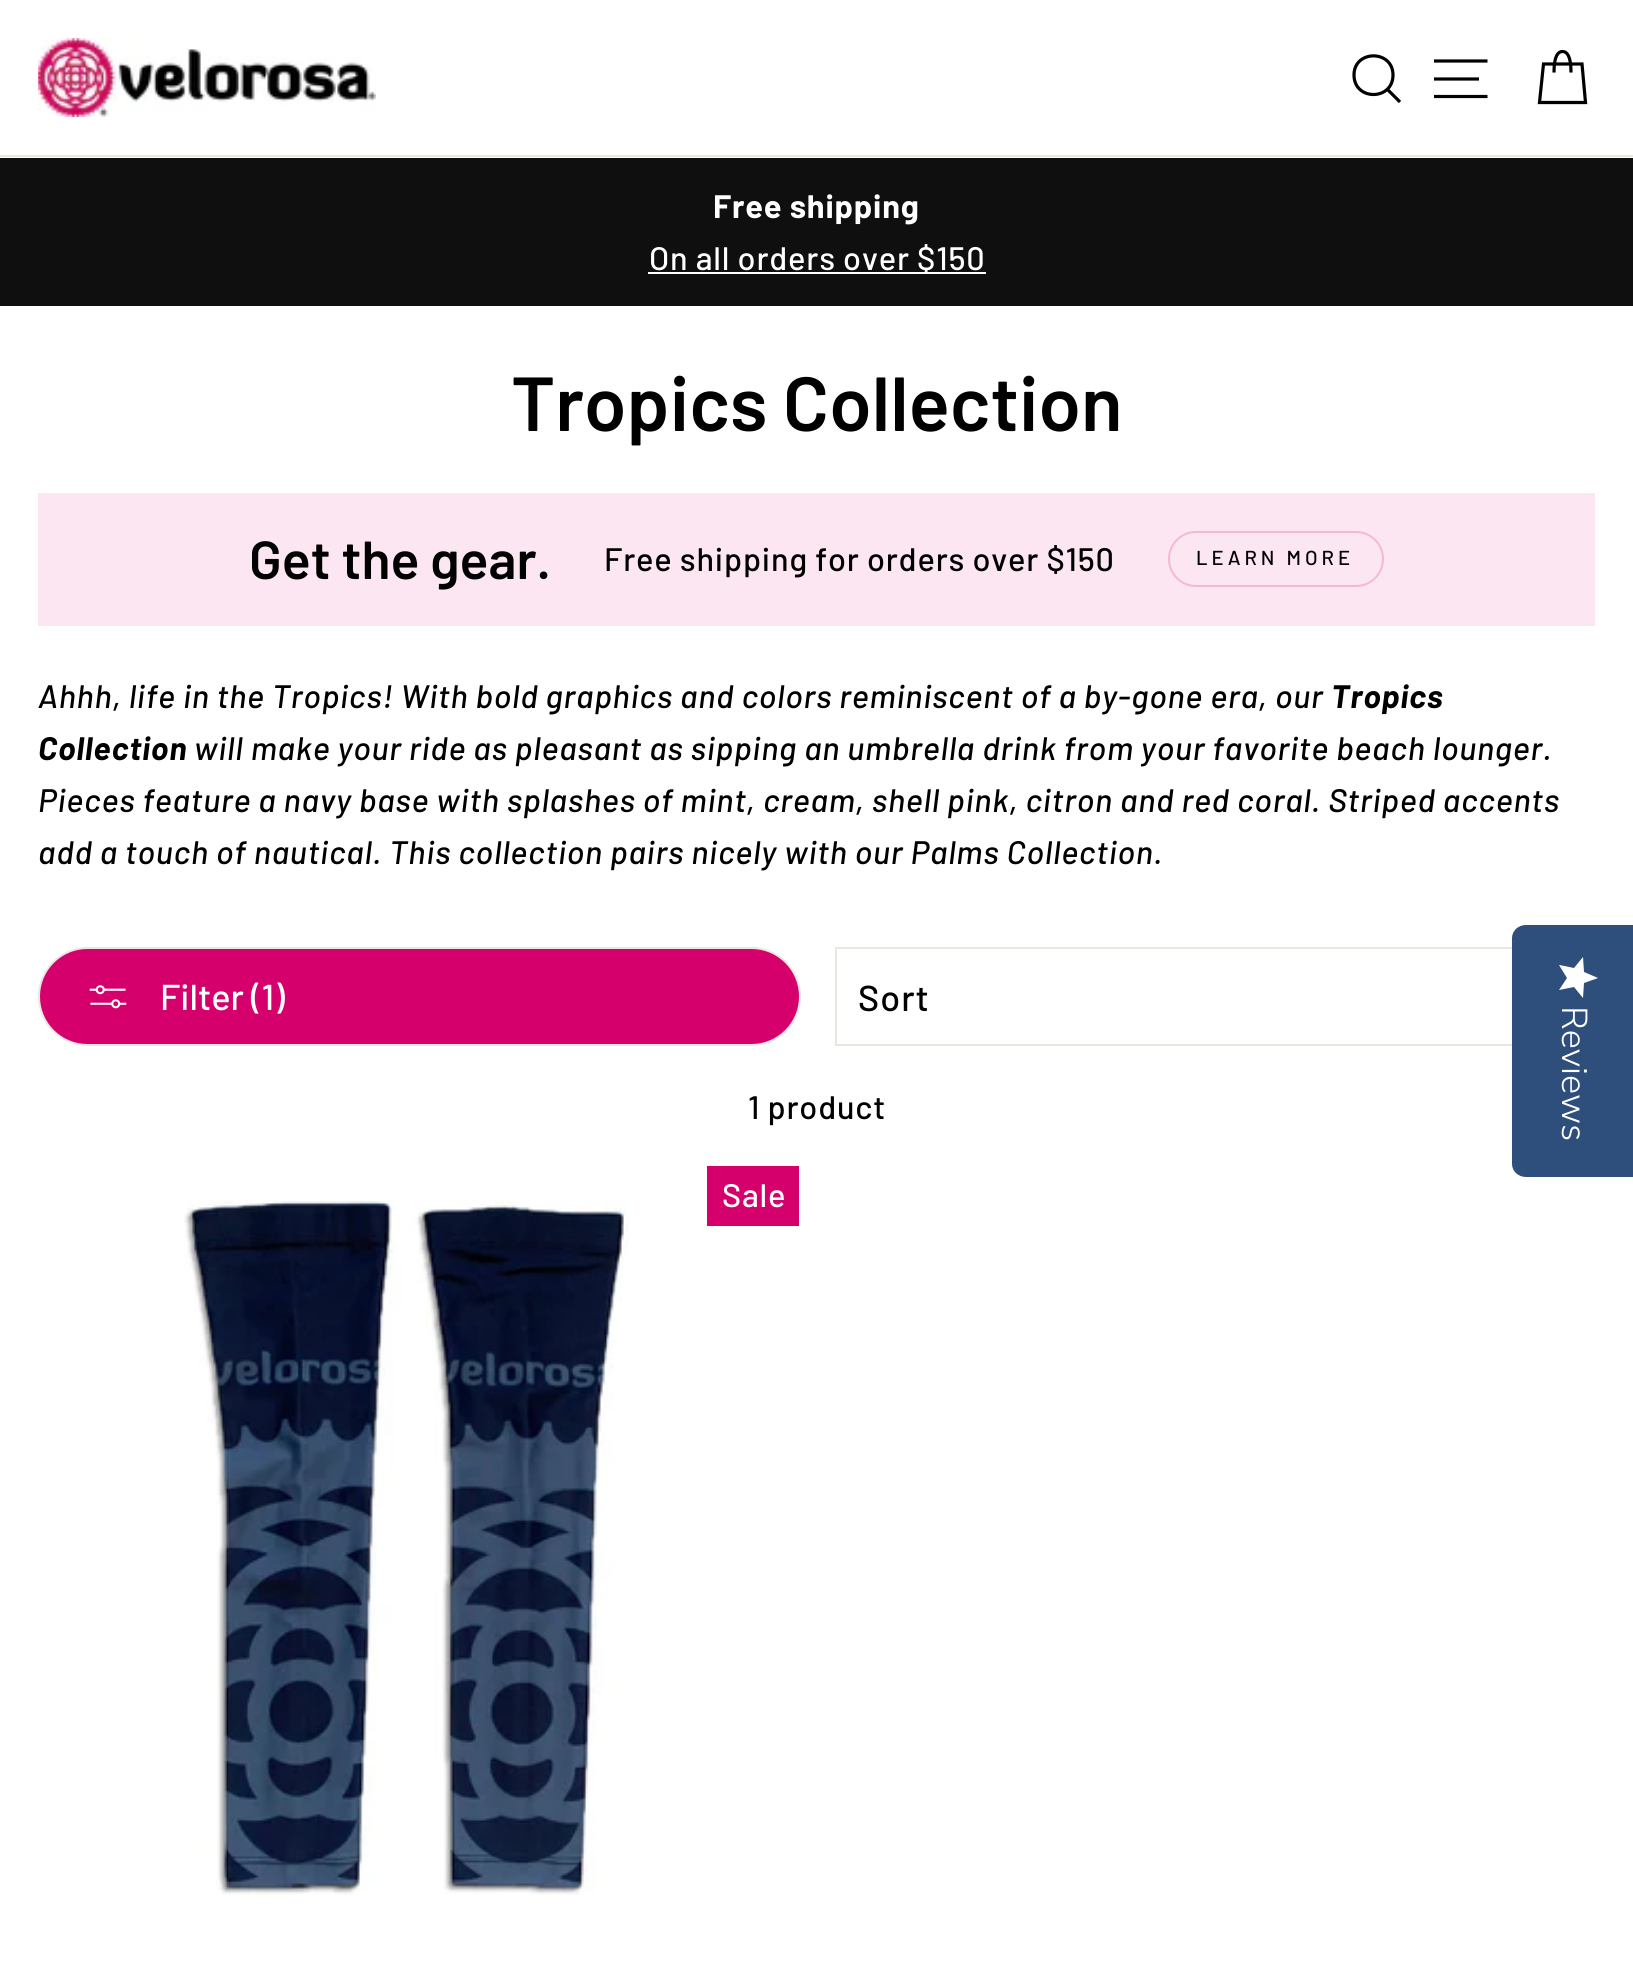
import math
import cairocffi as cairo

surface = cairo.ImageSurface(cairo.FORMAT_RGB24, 1633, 1971)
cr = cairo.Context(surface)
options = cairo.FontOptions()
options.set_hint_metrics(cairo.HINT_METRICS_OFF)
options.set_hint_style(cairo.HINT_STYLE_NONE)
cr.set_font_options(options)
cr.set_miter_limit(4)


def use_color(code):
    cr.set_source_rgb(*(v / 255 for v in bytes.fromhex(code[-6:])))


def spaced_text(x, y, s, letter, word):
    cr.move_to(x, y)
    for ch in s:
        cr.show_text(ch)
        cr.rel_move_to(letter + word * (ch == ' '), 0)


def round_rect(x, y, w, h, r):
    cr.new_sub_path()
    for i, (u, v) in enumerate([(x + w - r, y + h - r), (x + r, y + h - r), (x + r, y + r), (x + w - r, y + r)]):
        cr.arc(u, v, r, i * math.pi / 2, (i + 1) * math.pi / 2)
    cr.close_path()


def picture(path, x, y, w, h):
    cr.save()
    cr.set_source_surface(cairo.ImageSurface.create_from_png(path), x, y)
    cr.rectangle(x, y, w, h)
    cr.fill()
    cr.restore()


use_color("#ffffff")
cr.paint()
use_color("#e8e8e1")
cr.rectangle(0, 155, 1633, 2)
cr.fill()
picture("img1.png", 38, 38, 338, 79)
cr.new_path()
cr.move_to(1393, 75)
cr.curve_to(1393, 101, 1354, 101, 1354, 75)
cr.curve_to(1354, 49.5, 1393, 49.5, 1393, 75)
cr.close_path()
cr.move_to(1400, 102)
cr.line_to(1387.5, 89.5)
use_color("#000000")
cr.set_line_width(3.2)
cr.stroke()
cr.new_path()
cr.move_to(1434, 61)
cr.line_to(1487.5, 61)
cr.move_to(1434, 79)
cr.line_to(1479, 79)
cr.move_to(1434, 96.5)
cr.line_to(1487.5, 96.5)
cr.stroke()
cr.new_path()
cr.move_to(1554, 72.5)
cr.curve_to(1554, 56, 1558, 51.5, 1562.5, 51.5)
cr.curve_to(1567, 51.5, 1571, 56, 1571, 72.5)
cr.move_to(1543.5, 64)
cr.line_to(1582, 64)
cr.line_to(1585.5, 102.5)
cr.line_to(1539.5, 102.5)
cr.close_path()
cr.stroke()
use_color("#0f0f0f")
cr.rectangle(0, 158, 1633, 148)
cr.fill()
cr.select_font_face("Barlow", cairo.FONT_SLANT_NORMAL, cairo.FONT_WEIGHT_BOLD)
cr.set_font_size(32.5)
use_color("#ffffff")
spaced_text(713, 218, "Free shipping", 0.81, 0)
cr.rectangle(648, 272, 338, 2)
cr.fill()
cr.select_font_face("Barlow Medium")
spaced_text(649, 270, "On all orders over $150", 0.81, 0)
cr.select_font_face("Barlow SemiBold")
cr.set_font_size(76.5)
use_color("#000000")
cr.move_to(511, 431)
cr.show_text("Tropics Collection")
use_color("#fce6f1")
cr.rectangle(38, 493, 1557, 133)
cr.fill()
cr.set_font_size(53.5)
use_color("#000000")
cr.move_to(249, 579)
cr.show_text("Get the gear.")
cr.select_font_face("Barlow Medium")
cr.set_font_size(32.5)
spaced_text(604, 571, "Free shipping for orders over $150", 0.81, 0)
round_rect(1169, 532, 214, 54, 27)
use_color("#f4b8d7")
cr.set_line_width(2)
cr.stroke()
cr.set_font_size(20.25)
use_color("#000000")
spaced_text(1196, 565, "LEARN MORE", 4, 0)
cr.select_font_face("Barlow Medium", cairo.FONT_SLANT_ITALIC)
cr.set_font_size(32.5)
spaced_text(38, 708, "Ahhh, life in the Tropics! With bold graphics and colors reminiscent of a by-gone era, our", 0.81, 0)
cr.select_font_face("Barlow", cairo.FONT_SLANT_ITALIC, cairo.FONT_WEIGHT_BOLD)
spaced_text(1331, 708, "Tropics", 0.81, 0)
spaced_text(38, 760, "Collection", 0.81, 0)
cr.select_font_face("Barlow Medium", cairo.FONT_SLANT_ITALIC)
spaced_text(194, 760, "will make your ride as pleasant as sipping an umbrella drink from your favorite beach lounger.", 0.81, 0)
spaced_text(38, 812, "Pieces feature a navy base with splashes of mint, cream, shell pink, citron and red coral. Striped accents", 0.81, 0)
spaced_text(38, 864, "add a touch of nautical. This collection pairs nicely with our Palms Collection.", 0.81, 0)
use_color("#d6006d")
round_rect(39, 948, 761, 97, 48.5)
cr.fill_preserve()
use_color("#e8e8e1")
cr.stroke()
picture("img2.png", 89, 985, 38, 24)
cr.select_font_face("Barlow Medium")
cr.set_font_size(36)
use_color("#ffffff")
cr.move_to(160, 1010)
cr.show_text("Filter (1)")
cr.rectangle(836, 948, 758, 97)
use_color("#e8e8e1")
cr.stroke()
use_color("#000000")
spaced_text(858, 1011, "Sort", 1, 0)
cr.set_font_size(32.5)
spaced_text(748, 1119, "1 product", 0.81, 0)
use_color("#d6006d")
cr.rectangle(707, 1166, 92, 60)
cr.fill()
use_color("#ffffff")
spaced_text(722, 1207, "Sale", 0.81, 0)
picture("img3.png", 184, 1199, 445, 696)
use_color("#2e4f7c")
cr.new_path()
cr.move_to(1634, 925)
cr.line_to(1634, 1177)
cr.line_to(1526, 1177)
cr.curve_to(1518, 1177, 1512, 1171, 1512, 1164)
cr.line_to(1512, 938)
cr.curve_to(1512, 931, 1518, 925, 1526, 925)
cr.close_path()
cr.fill()
gradient = cairo.LinearGradient(1598, 957, 1598, 998)
gradient.add_color_stop_rgba(1, 1, 1, 1, 1)
gradient.add_color_stop_rgba(1, 0.918, 0.918, 0.918, 1)
cr.set_source(gradient)
cr.new_path()
cr.move_to(1567, 978)
cr.line_to(1559, 990)
cr.line_to(1574, 987)
cr.line_to(1583, 998)
cr.line_to(1584, 983)
cr.line_to(1598, 978)
cr.line_to(1584, 972)
cr.line_to(1583, 957)
cr.line_to(1574, 968)
cr.line_to(1559, 965)
cr.close_path()
cr.fill()
cr.select_font_face("Nunito Sans Light")
cr.set_font_size(36)
use_color("#ffffff")
cr.save()
cr.translate(1562, 1006)
cr.rotate(90 * math.pi / 180)
cr.move_to(0, 0)
cr.show_text("Reviews")
cr.restore()
surface.write_to_png("result.png")
